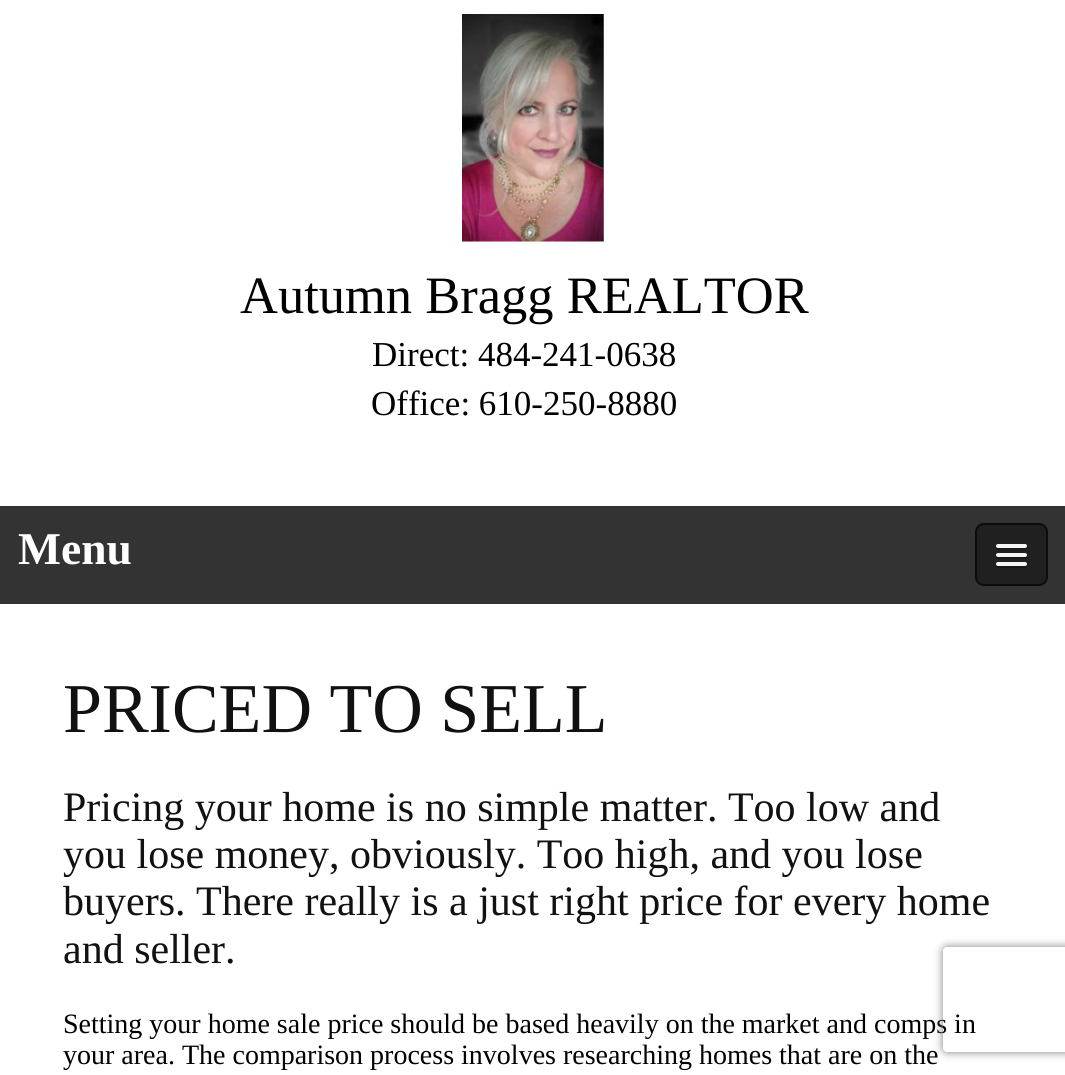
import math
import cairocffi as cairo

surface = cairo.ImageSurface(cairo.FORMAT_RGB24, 1065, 1075)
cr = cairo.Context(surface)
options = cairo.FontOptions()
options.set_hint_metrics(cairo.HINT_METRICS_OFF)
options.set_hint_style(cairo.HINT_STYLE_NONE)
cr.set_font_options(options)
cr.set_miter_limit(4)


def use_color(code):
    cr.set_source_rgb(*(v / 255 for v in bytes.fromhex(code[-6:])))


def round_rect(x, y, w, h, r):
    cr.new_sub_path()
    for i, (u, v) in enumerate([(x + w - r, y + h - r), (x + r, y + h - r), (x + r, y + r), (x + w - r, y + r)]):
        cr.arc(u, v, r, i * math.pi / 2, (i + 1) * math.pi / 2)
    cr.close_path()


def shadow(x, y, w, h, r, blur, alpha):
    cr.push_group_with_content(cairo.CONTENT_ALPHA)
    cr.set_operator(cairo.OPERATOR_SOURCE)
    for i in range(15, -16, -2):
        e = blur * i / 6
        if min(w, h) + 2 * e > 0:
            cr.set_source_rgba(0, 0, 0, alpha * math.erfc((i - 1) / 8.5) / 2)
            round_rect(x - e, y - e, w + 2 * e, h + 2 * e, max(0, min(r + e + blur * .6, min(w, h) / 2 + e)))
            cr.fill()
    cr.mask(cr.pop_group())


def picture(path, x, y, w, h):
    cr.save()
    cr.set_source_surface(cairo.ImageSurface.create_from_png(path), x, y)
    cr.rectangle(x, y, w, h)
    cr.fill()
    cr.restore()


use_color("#ffffff")
cr.paint()
picture("img1.png", 462, 14, 142, 228)
cr.select_font_face("Liberation Serif")
cr.set_font_size(52.5)
use_color("#000000")
cr.move_to(240, 313)
cr.show_text("Autumn Bragg REALTOR")
cr.set_font_size(35)
cr.move_to(372, 366)
cr.show_text("Direct: 484-241-0638")
cr.move_to(371, 415)
cr.show_text("Office: 610-250-8880")
use_color("#333333")
cr.rectangle(0, 506, 1065, 98)
cr.fill()
cr.select_font_face("Liberation Serif", cairo.FONT_SLANT_NORMAL, cairo.FONT_WEIGHT_BOLD)
cr.set_font_size(45.5)
use_color("#ffffff")
cr.move_to(18, 564)
cr.show_text("Menu")
use_color("#202020")
round_rect(976, 524, 71, 61, 8)
cr.fill_preserve()
use_color("#0c0c0c")
cr.stroke()
use_color("#181818")
cr.new_path()
cr.move_to(996, 547)
cr.curve_to(994.5, 551, 1001.5, 550, 1002.5, 550)
cr.line_to(1020.5, 550)
cr.curve_to(1021.5, 550, 1028.5, 551, 1027, 547)
cr.line_to(1025.5, 547.5)
cr.line_to(997.5, 547.5)
cr.close_path()
cr.fill()
use_color("#f5f5f5")
round_rect(996, 544, 31, 4, 2)
cr.fill()
use_color("#181818")
cr.new_path()
cr.move_to(996.5, 556)
cr.curve_to(994, 560, 1002, 559, 1002.5, 559)
cr.line_to(1020.5, 559)
cr.curve_to(1021, 559, 1029, 560, 1026.5, 556)
cr.line_to(1025.5, 556.5)
cr.line_to(997.5, 556.5)
cr.close_path()
cr.fill()
use_color("#f5f5f5")
round_rect(996, 553, 31, 4, 2)
cr.fill()
use_color("#181818")
cr.new_path()
cr.move_to(996.5, 565)
cr.line_to(996, 566.5)
cr.curve_to(996.5, 569, 1001.5, 568, 1002.5, 568)
cr.line_to(1020.5, 568)
cr.curve_to(1021.5, 568, 1026.5, 569, 1027, 566.5)
cr.line_to(1026.5, 565)
cr.curve_to(1025.5, 565.5, 997.5, 565.5, 996.5, 565)
cr.close_path()
cr.fill()
use_color("#f5f5f5")
round_rect(996, 562, 31, 4, 2)
cr.fill()
cr.select_font_face("Liberation Serif")
cr.set_font_size(70)
use_color("#111111")
cr.move_to(63, 732)
cr.show_text("PRICED TO SELL")
cr.set_font_size(42)
cr.move_to(63, 821)
cr.show_text("Pricing your home is no simple matter. Too low and")
cr.move_to(63, 868)
cr.show_text("you lose money, obviously. Too high, and you lose")
cr.move_to(63, 915)
cr.show_text("buyers. There really is a just right price for every home")
cr.move_to(63, 963)
cr.show_text("and seller.")
cr.set_font_size(28)
use_color("#000000")
cr.move_to(63, 1033)
cr.show_text("Setting your home sale price should be based heavily on the market and comps in")
cr.move_to(63, 1064)
cr.show_text("your area. The comparison process involves researching homes that are on the")
cr.save()
cr.set_fill_rule(cairo.FILL_RULE_EVEN_ODD)
cr.new_path()
cr.move_to(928, 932)
cr.line_to(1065, 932)
cr.line_to(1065, 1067)
cr.line_to(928, 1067)
cr.close_path()
cr.move_to(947, 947)
cr.line_to(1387, 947)
cr.curve_to(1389, 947, 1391, 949, 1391, 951)
cr.line_to(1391, 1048)
cr.curve_to(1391, 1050, 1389, 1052, 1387, 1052)
cr.line_to(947, 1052)
cr.curve_to(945, 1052, 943, 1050, 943, 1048)
cr.line_to(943, 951)
cr.curve_to(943, 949, 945, 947, 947, 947)
cr.close_path()
cr.clip()
use_color("#808080")
shadow(943, 947, 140, 105, 4, 4.5, 1)
cr.restore()
surface.write_to_png("result.png")
